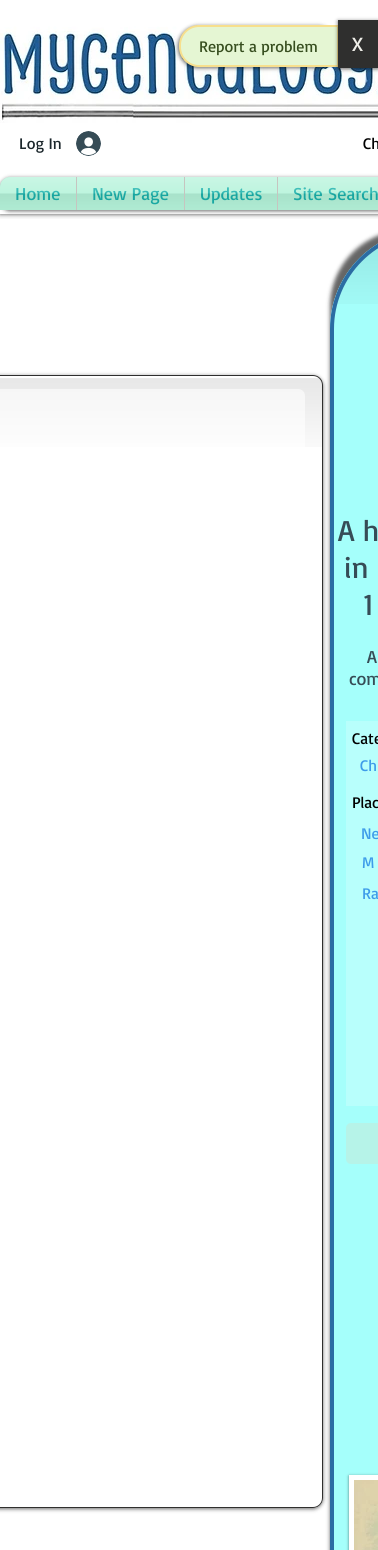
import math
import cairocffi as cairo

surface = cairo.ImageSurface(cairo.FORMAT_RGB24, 378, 1550)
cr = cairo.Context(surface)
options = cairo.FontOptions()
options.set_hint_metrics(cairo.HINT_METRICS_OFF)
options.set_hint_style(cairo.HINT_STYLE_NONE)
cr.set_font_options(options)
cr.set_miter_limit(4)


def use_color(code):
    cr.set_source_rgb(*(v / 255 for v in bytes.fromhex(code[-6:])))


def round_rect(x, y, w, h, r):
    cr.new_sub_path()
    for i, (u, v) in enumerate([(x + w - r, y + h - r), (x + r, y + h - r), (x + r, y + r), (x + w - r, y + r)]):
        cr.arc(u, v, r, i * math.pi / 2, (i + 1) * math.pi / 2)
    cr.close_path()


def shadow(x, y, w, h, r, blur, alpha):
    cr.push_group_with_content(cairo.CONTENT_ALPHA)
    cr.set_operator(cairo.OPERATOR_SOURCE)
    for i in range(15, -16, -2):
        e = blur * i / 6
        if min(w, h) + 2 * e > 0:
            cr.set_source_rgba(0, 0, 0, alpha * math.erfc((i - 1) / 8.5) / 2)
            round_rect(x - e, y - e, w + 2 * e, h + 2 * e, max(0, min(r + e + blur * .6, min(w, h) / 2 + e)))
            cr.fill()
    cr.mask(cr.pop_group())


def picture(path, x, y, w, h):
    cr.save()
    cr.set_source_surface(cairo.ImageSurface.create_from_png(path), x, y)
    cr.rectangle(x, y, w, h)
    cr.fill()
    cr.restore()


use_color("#ffffff")
cr.paint()
cr.save()
cr.rectangle(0, 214, 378, 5)
cr.clip()
use_color("#000000")
shadow(0, 0, 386, 214, 0, 2.5, 0.7)
cr.restore()
picture("img1.png", 0, 26, 378, 97)
use_color("#000000")
shadow(178, 26, 160, 42, 20, 2, 0.6)
use_color("#e5f6d3")
cr.new_path()
cr.move_to(199, 26)
cr.line_to(338, 26)
cr.line_to(338, 66)
cr.line_to(199, 66)
cr.curve_to(188.5, 66, 180, 57.5, 180, 47)
cr.line_to(180, 45)
cr.curve_to(180, 34.5, 188.5, 26, 199, 26)
cr.close_path()
cr.fill_preserve()
use_color("#f7df8d")
cr.stroke()
cr.select_font_face("Basic")
cr.set_font_size(16)
use_color("#374e1f")
cr.move_to(199, 52)
cr.show_text("Report a problem")
use_color("#000000")
shadow(338, 21, 40, 48, 0, 2, 0.6)
use_color("#2f2f2e")
cr.rectangle(338, 20, 40, 48)
cr.fill()
cr.set_font_size(20)
use_color("#efeee8")
cr.move_to(352, 51)
cr.show_text("X")
cr.set_font_size(16)
use_color("#1b262b")
cr.move_to(19, 149)
cr.show_text("Log In")
picture("img2.png", 76, 131, 25, 25)
use_color("#000000")
cr.move_to(363, 149)
cr.show_text("Ch")
use_color("#000000")
shadow(0, 178, 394, 33, 10, 2, 0.6)
picture("img3.png", 0, 177, 10, 10)
use_color("#b5f3da")
cr.new_path()
cr.move_to(10, 177)
cr.line_to(76, 177)
cr.line_to(76, 210)
cr.line_to(0, 210)
cr.line_to(0, 187)
cr.curve_to(0, 181.5, 4.5, 177, 10, 177)
cr.close_path()
cr.fill()
cr.set_font_size(18)
use_color("#1ab1ab")
cr.move_to(15, 200)
cr.show_text("Home")
picture("img4.png", 0, 177, 76, 33)
use_color("#b5f3da")
cr.rectangle(77, 177, 107, 33)
cr.fill()
use_color("#c6c5c0")
cr.rectangle(76, 177, 1, 33)
cr.fill()
use_color("#1ab1ab")
cr.move_to(92, 200)
cr.show_text("New Page")
picture("img5.png", 77, 177, 107, 33)
use_color("#b5f3da")
cr.rectangle(185, 177, 92, 33)
cr.fill()
use_color("#c6c5c0")
cr.rectangle(184, 177, 1, 33)
cr.fill()
use_color("#1ab1ab")
cr.move_to(200, 200)
cr.show_text("Updates")
picture("img6.png", 185, 177, 92, 33)
use_color("#b5f3da")
cr.rectangle(278, 177, 100, 33)
cr.fill()
use_color("#c6c5c0")
cr.rectangle(277, 177, 1, 33)
cr.fill()
use_color("#1ab1ab")
cr.move_to(293, 200)
cr.show_text("Site Search")
picture("img7.png", 278, 177, 100, 33)
cr.save()
cr.set_fill_rule(cairo.FILL_RULE_EVEN_ODD)
cr.new_path()
cr.move_to(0, 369)
cr.line_to(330, 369)
cr.line_to(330, 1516)
cr.line_to(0, 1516)
cr.close_path()
cr.move_to(-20, 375)
cr.line_to(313, 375)
cr.curve_to(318.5, 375, 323, 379.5, 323, 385)
cr.line_to(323, 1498)
cr.curve_to(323, 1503.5, 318.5, 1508, 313, 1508)
cr.line_to(-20, 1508)
cr.curve_to(-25.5, 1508, -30, 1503.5, -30, 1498)
cr.line_to(-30, 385)
cr.curve_to(-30, 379.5, -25.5, 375, -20, 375)
cr.close_path()
cr.clip()
use_color("#000000")
shadow(-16, 376, 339, 1133, 10, 2, 0.6)
cr.restore()
cr.set_source_rgba(1, 1, 1, 0.68)
cr.new_path()
cr.move_to(0, 375)
cr.line_to(313, 375)
cr.curve_to(318.5, 375, 323, 379.5, 323, 385)
cr.line_to(323, 1498)
cr.curve_to(323, 1503.5, 318.5, 1508, 313, 1508)
cr.line_to(0, 1508)
cr.close_path()
cr.fill()
picture("img8.png", 0, 378, 323, 69)
round_rect(-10.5, 375.5, 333, 1132, 9.5)
use_color("#2f2f2e")
cr.set_line_width(1)
cr.stroke()
cr.set_source_rgba(1, 1, 1, 0.59)
cr.new_path()
cr.move_to(0, 389)
cr.line_to(298, 389)
cr.curve_to(302, 389, 305, 392, 305, 396)
cr.line_to(305, 1172)
cr.curve_to(305, 1176, 302, 1179, 298, 1179)
cr.line_to(0, 1179)
cr.close_path()
cr.fill()
cr.save()
cr.set_fill_rule(cairo.FILL_RULE_EVEN_ODD)
cr.new_path()
cr.move_to(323, 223)
cr.line_to(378, 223)
cr.line_to(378, 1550)
cr.line_to(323, 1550)
cr.close_path()
cr.move_to(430, 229)
cr.line_to(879, 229)
cr.curve_to(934, 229, 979, 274, 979, 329)
cr.line_to(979, 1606)
cr.curve_to(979, 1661, 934, 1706, 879, 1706)
cr.line_to(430, 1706)
cr.curve_to(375, 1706, 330, 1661, 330, 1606)
cr.line_to(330, 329)
cr.curve_to(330, 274, 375, 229, 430, 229)
cr.close_path()
cr.clip()
use_color("#000000")
shadow(330, 230, 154, 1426, 100, 2, 0.6)
cr.restore()
cr.set_source_rgba(0.502, 1, 0.98, 0.7)
round_rect(330, 229, 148, 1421, 100)
cr.fill()
picture("img9.png", 336, 244, 42, 60)
round_rect(332, 231, 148, 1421, 98)
use_color("#2b6ca3")
cr.set_line_width(4)
cr.stroke()
cr.set_font_size(30)
use_color("#364c56")
cr.move_to(338, 541)
cr.show_text("A h")
cr.move_to(344, 578)
cr.show_text("in")
cr.move_to(363, 615)
cr.show_text("1")
cr.set_font_size(18)
cr.move_to(367, 663)
cr.show_text("A")
cr.move_to(349, 685)
cr.show_text("com")
use_color("#b8fffc")
cr.rectangle(346, 721, 32, 385)
cr.fill()
cr.set_font_size(16)
use_color("#000000")
cr.move_to(352, 744)
cr.show_text("Cate")
use_color("#3d9be9")
cr.move_to(360, 771)
cr.show_text("Ch")
use_color("#000000")
cr.move_to(352, 808)
cr.show_text("Plac")
use_color("#3d9be9")
cr.move_to(361, 839)
cr.show_text("Ne")
cr.move_to(362, 868)
cr.show_text("M")
cr.move_to(362, 899)
cr.show_text("Ra")
use_color("#b6f3e8")
round_rect(346, 1123, 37, 41, 5)
cr.fill()
use_color("#000000")
shadow(349, 1476, 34, 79, 0, 1.5, 0.5)
use_color("#ffffff")
cr.rectangle(349, 1475, 29, 75)
cr.fill()
picture("img10.png", 354, 1480, 24, 70)
surface.write_to_png("result.png")
